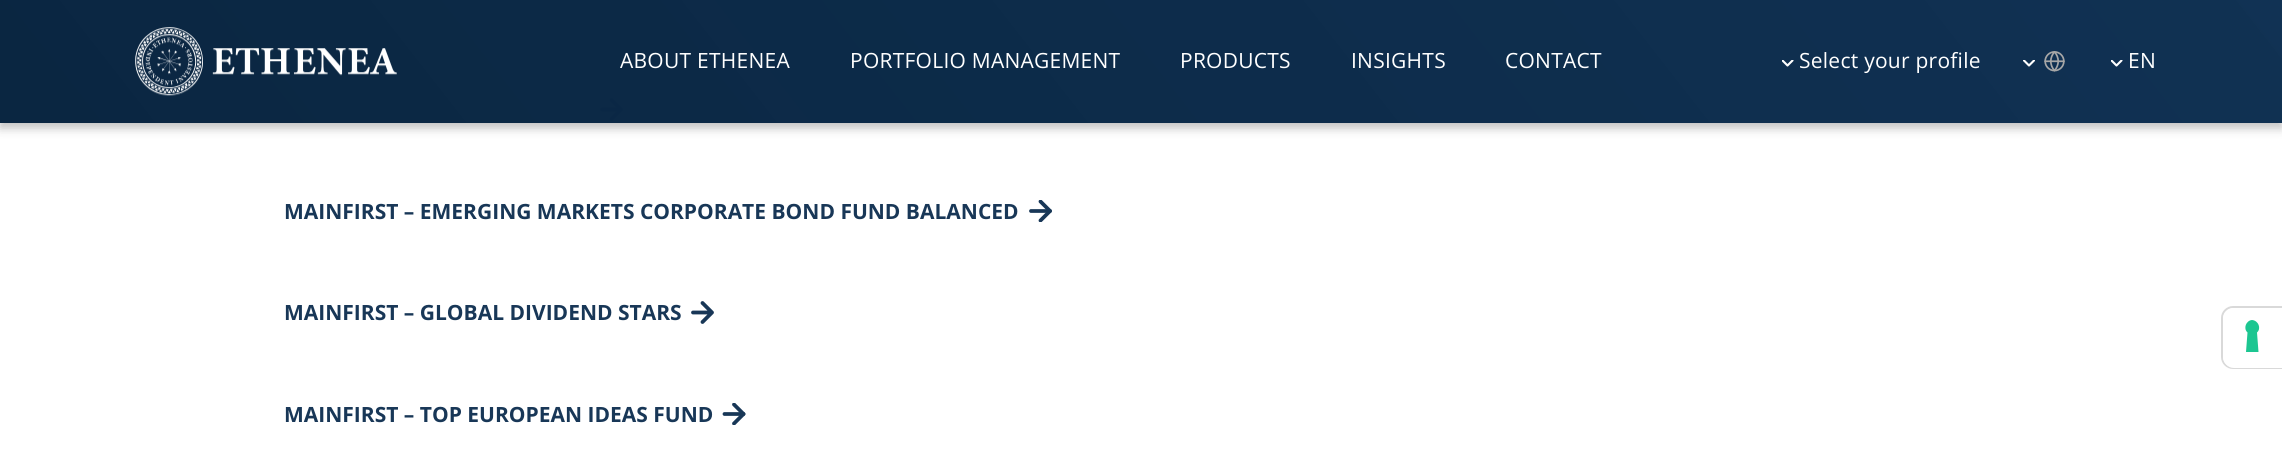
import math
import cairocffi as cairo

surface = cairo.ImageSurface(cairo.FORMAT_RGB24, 2282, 449)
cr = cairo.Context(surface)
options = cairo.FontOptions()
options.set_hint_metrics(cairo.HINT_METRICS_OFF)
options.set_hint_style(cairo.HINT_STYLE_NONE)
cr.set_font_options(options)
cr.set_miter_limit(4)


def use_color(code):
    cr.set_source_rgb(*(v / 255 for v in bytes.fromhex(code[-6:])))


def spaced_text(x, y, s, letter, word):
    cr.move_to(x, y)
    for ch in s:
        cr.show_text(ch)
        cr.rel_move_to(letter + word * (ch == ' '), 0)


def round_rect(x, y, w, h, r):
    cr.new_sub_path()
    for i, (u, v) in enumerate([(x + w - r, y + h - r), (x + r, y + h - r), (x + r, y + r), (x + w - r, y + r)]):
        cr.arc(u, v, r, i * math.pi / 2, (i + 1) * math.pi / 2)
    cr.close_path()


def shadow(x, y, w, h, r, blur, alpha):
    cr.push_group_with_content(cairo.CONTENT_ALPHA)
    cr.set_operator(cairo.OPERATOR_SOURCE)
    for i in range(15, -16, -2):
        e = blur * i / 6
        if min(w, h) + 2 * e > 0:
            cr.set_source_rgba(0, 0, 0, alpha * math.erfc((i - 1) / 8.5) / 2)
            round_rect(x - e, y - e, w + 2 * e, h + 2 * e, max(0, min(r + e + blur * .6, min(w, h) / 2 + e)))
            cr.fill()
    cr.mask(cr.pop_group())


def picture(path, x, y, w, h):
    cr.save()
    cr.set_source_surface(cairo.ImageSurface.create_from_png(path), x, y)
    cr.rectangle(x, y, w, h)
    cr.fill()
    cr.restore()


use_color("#ffffff")
cr.paint()
cr.new_path()
cr.move_to(602, 109.5)
cr.line_to(621, 109.5)
cr.move_to(611.5, 100)
cr.line_to(621, 109.5)
cr.line_to(611.5, 119)
use_color("#183757")
cr.set_line_width(3.8)
cr.set_line_cap(cairo.LINE_CAP_ROUND)
cr.set_line_join(cairo.LINE_JOIN_ROUND)
cr.stroke()
cr.save()
cr.set_fill_rule(cairo.FILL_RULE_EVEN_ODD)
cr.new_path()
cr.move_to(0, 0)
cr.line_to(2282, 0)
cr.line_to(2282, 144)
cr.line_to(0, 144)
cr.close_path()
cr.move_to(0, 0)
cr.line_to(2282, 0)
cr.line_to(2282, 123)
cr.line_to(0, 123)
cr.close_path()
cr.clip()
use_color("#000000")
shadow(0, 5, 2282, 123, 0, 5, 0.25)
cr.restore()
gradient = cairo.LinearGradient(1879, -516, 403, 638)
gradient.add_color_stop_rgba(0, 0.035, 0.169, 0.306, 0.97)
gradient.add_color_stop_rgba(1, 0.039, 0.149, 0.255, 1)
cr.set_source(gradient)
cr.rectangle(0, 0, 2282, 123)
cr.fill()
picture("img1.png", 135, 27, 262, 69)
cr.select_font_face("Open Sans")
cr.set_font_size(21)
use_color("#ffffff")
spaced_text(620, 68, "ABOUT ETHENEA", 0.25, 0)
spaced_text(850, 68, "PORTFOLIO MANAGEMENT", 0.25, 0)
spaced_text(1180, 68, "PRODUCTS", 0.25, 0)
spaced_text(1351, 68, "INSIGHTS", 0.25, 0)
spaced_text(1505, 68, "CONTACT", 0.25, 0)
cr.save()
cr.rectangle(1782, 60, 12, 7)
cr.clip()
cr.new_path()
cr.move_to(1782.5, 60.5)
cr.line_to(1787.5, 65.5)
cr.line_to(1792.5, 60.5)
cr.set_line_width(2.1)
cr.stroke()
cr.restore()
spaced_text(1799, 68, "Select your profile", 0.25, 0)
cr.save()
cr.rectangle(2023, 60, 12, 7)
cr.clip()
cr.new_path()
cr.move_to(2024, 60.5)
cr.line_to(2029, 65.5)
cr.line_to(2034, 60.5)
cr.set_line_width(2.1)
cr.stroke()
cr.restore()
picture("img2.png", 2044, 51, 21, 21)
cr.save()
cr.rectangle(2111, 60, 12, 7)
cr.clip()
cr.new_path()
cr.move_to(2111.5, 60.5)
cr.line_to(2116.5, 65.5)
cr.line_to(2121.5, 60.5)
cr.set_line_width(2.1)
cr.stroke()
cr.restore()
spaced_text(2128, 68, "EN", 0.25, 0)
cr.select_font_face("Open Sans", cairo.FONT_SLANT_NORMAL, cairo.FONT_WEIGHT_BOLD)
use_color("#183757")
cr.move_to(284, 219)
cr.show_text("MAINFIRST – EMERGING MARKETS CORPORATE BOND FUND BALANCED")
cr.new_path()
cr.move_to(1031, 211)
cr.line_to(1050, 211)
cr.stroke()
cr.save()
cr.rectangle(1029, 200, 23, 22)
cr.clip()
cr.new_path()
cr.move_to(1040.5, 201.5)
cr.line_to(1050, 211)
cr.line_to(1040.5, 220.5)
cr.stroke()
cr.restore()
cr.move_to(284, 320)
cr.show_text("MAINFIRST – GLOBAL DIVIDEND STARS")
cr.new_path()
cr.move_to(693, 312.5)
cr.line_to(712, 312.5)
cr.move_to(702.5, 303)
cr.line_to(712, 312.5)
cr.line_to(702.5, 322)
cr.stroke()
cr.move_to(284, 422)
cr.show_text("MAINFIRST – TOP EUROPEAN IDEAS FUND")
cr.new_path()
cr.move_to(724.5, 414)
cr.line_to(743.5, 414)
cr.stroke()
cr.save()
cr.rectangle(723, 403, 23, 22)
cr.clip()
cr.new_path()
cr.move_to(734, 404.5)
cr.line_to(743.5, 414)
cr.line_to(734, 423.5)
cr.stroke()
cr.restore()
cr.new_path()
cr.move_to(2233, 307)
cr.line_to(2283, 307)
cr.line_to(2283, 368)
cr.line_to(2233, 368)
cr.curve_to(2227, 368, 2222, 363, 2222, 357)
cr.line_to(2222, 318)
cr.curve_to(2222, 312, 2227, 307, 2233, 307)
cr.close_path()
use_color("#d9d9d9")
cr.set_line_width(2)
cr.set_line_cap(cairo.LINE_CAP_BUTT)
cr.set_line_join(cairo.LINE_JOIN_MITER)
cr.stroke()
use_color("#ffffff")
cr.new_path()
cr.move_to(2234, 308)
cr.line_to(2282, 308)
cr.line_to(2282, 368)
cr.line_to(2234, 368)
cr.curve_to(2228, 368, 2223, 363, 2223, 357)
cr.line_to(2223, 319)
cr.curve_to(2223, 313, 2228, 308, 2234, 308)
cr.close_path()
cr.fill()
use_color("#1cc691")
cr.set_fill_rule(cairo.FILL_RULE_EVEN_ODD)
cr.new_path()
cr.move_to(2252, 320)
cr.curve_to(2258.5, 320.5, 2261.5, 328.5, 2257, 332.5)
cr.line_to(2258.5, 352)
cr.line_to(2246, 352)
cr.line_to(2247.5, 332.5)
cr.curve_to(2243, 328.5, 2246, 320.5, 2252, 320)
cr.close_path()
cr.fill()
surface.write_to_png("result.png")
